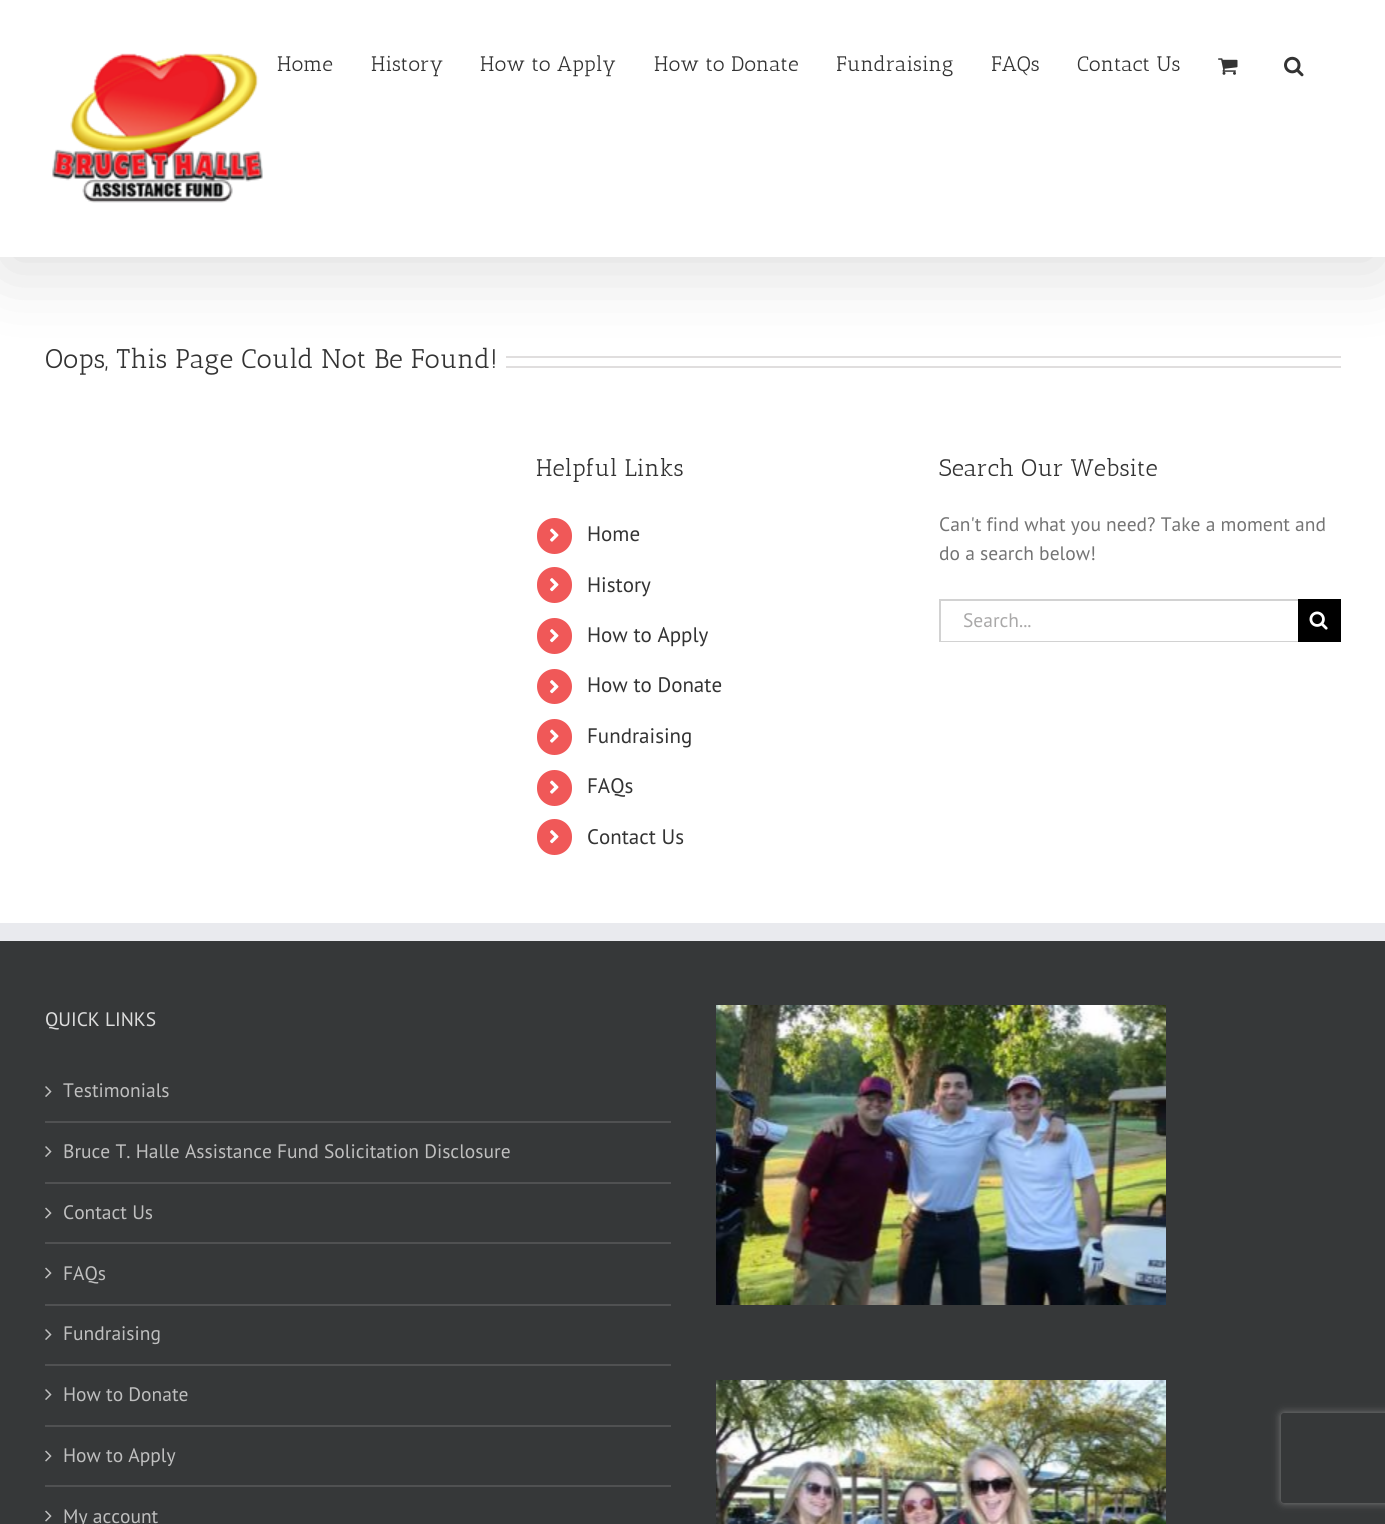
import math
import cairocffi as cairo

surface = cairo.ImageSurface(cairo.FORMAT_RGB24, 1385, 1524)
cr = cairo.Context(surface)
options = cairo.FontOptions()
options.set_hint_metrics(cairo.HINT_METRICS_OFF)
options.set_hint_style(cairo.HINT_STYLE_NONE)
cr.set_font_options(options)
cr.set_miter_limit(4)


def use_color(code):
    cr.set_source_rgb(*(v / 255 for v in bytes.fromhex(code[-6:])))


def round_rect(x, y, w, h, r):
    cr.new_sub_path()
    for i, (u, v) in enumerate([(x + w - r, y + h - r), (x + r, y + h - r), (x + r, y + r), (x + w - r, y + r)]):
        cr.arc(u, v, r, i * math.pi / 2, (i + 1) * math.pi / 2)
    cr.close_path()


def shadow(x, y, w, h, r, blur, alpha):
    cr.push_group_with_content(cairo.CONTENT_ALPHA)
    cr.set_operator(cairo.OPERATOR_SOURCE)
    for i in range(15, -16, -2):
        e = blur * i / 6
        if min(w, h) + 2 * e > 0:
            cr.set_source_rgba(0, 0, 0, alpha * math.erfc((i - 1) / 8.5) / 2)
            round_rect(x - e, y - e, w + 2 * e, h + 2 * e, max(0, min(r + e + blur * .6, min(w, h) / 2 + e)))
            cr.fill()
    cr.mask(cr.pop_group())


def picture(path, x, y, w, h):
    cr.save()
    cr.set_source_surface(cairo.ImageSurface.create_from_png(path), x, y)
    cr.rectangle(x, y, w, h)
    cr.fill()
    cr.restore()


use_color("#ffffff")
cr.paint()
use_color("#e0dede")
cr.rectangle(506, 356, 835, 2)
cr.fill()
cr.rectangle(506, 366, 835, 2)
cr.fill()
use_color("#000000")
shadow(3, 18, 1380, 251, 0, 37.5, 0.14)
use_color("#ffffff")
cr.rectangle(0, 0, 1385, 257)
cr.fill()
picture("img1.png", 52, 53, 211, 150)
cr.select_font_face("Antic Slab")
cr.set_font_size(21)
use_color("#333333")
cr.move_to(277, 71)
cr.show_text("Home")
cr.move_to(371, 71)
cr.show_text("History")
cr.move_to(480, 71)
cr.show_text("How to Apply")
cr.move_to(654, 71)
cr.show_text("How to Donate")
cr.move_to(836, 71)
cr.show_text("Fundraising")
cr.move_to(991, 71)
cr.show_text("FAQs")
cr.move_to(1077, 71)
cr.show_text("Contact Us")
picture("img2.png", 1218, 58, 20, 17)
picture("img3.png", 1284, 56, 20, 21)
cr.set_font_size(27)
cr.move_to(45, 368)
cr.show_text("Oops, This Page Could Not Be Found!")
cr.set_font_size(24)
cr.move_to(536, 476)
cr.show_text("Helpful Links")
use_color("#f05858")
round_rect(537, 518, 35, 36, 17.5)
cr.fill()
picture("img4.png", 550, 528, 9, 14)
cr.select_font_face("PT Sans")
cr.set_font_size(21)
use_color("#333333")
cr.move_to(587, 541)
cr.show_text("Home")
use_color("#f05858")
round_rect(537, 567, 35, 36, 17.5)
cr.fill()
picture("img5.png", 550, 578, 9, 14)
use_color("#333333")
cr.move_to(587, 592)
cr.show_text("History")
use_color("#f05858")
round_rect(537, 618, 35, 36, 17.5)
cr.fill()
picture("img5.png", 550, 629, 9, 14)
use_color("#333333")
cr.move_to(587, 642)
cr.show_text("How to Apply")
use_color("#f05858")
cr.new_path()
cr.arc(554.5, 686.5, 17.5, 0, 2 * math.pi)
cr.fill()
picture("img5.png", 550, 680, 9, 14)
use_color("#333333")
cr.move_to(587, 692)
cr.show_text("How to Donate")
use_color("#f05858")
round_rect(537, 719, 35, 36, 17.5)
cr.fill()
picture("img4.png", 550, 729, 9, 14)
use_color("#333333")
cr.move_to(587, 743)
cr.show_text("Fundraising")
use_color("#f05858")
round_rect(537, 770, 35, 36, 17.5)
cr.fill()
picture("img4.png", 550, 780, 9, 14)
use_color("#333333")
cr.move_to(587, 793)
cr.show_text("FAQs")
use_color("#f05858")
round_rect(537, 819, 35, 36, 17.5)
cr.fill()
picture("img5.png", 550, 830, 9, 14)
use_color("#333333")
cr.move_to(587, 844)
cr.show_text("Contact Us")
cr.select_font_face("Antic Slab")
cr.set_font_size(24)
cr.move_to(939, 476)
cr.show_text("Search Our Website")
cr.select_font_face("PT Sans")
cr.set_font_size(19.5)
use_color("#747474")
cr.move_to(939, 531)
cr.show_text("Can't find what you need? Take a moment and")
cr.move_to(939, 560)
cr.show_text("do a search below!")
use_color("#d2d2d2")
cr.rectangle(939, 599, 359, 2)
cr.fill()
cr.rectangle(939, 641, 359, 1)
cr.fill()
cr.rectangle(939, 599, 2, 43)
cr.fill()
use_color("#aaa9a9")
cr.move_to(963, 627)
cr.show_text("Search...")
use_color("#000000")
cr.rectangle(1298, 599, 43, 43)
cr.fill()
picture("img6.png", 1309, 611, 19, 19)
use_color("#363839")
cr.rectangle(0, 941, 1385, 583)
cr.fill()
use_color("#e9eaee")
cr.rectangle(0, 923, 1385, 18)
cr.fill()
use_color("#dddddd")
cr.move_to(45, 1026)
cr.show_text("QUICK LINKS")
use_color("#505152")
cr.rectangle(45, 1121, 626, 2)
cr.fill()
picture("img7.png", 45, 1086, 7, 11)
use_color("#bfbfbf")
cr.move_to(63, 1097)
cr.show_text("Testimonials")
use_color("#505152")
cr.rectangle(45, 1182, 626, 2)
cr.fill()
picture("img7.png", 45, 1146, 7, 11)
use_color("#bfbfbf")
cr.move_to(63, 1158)
cr.show_text("Bruce T. Halle Assistance Fund Solicitation Disclosure")
use_color("#505152")
cr.rectangle(45, 1242, 626, 2)
cr.fill()
picture("img8.png", 45, 1207, 7, 12)
use_color("#bfbfbf")
cr.move_to(63, 1219)
cr.show_text("Contact Us")
use_color("#505152")
cr.rectangle(45, 1304, 626, 2)
cr.fill()
picture("img8.png", 45, 1267, 7, 12)
use_color("#bfbfbf")
cr.move_to(63, 1280)
cr.show_text("FAQs")
use_color("#505152")
cr.rectangle(45, 1364, 626, 2)
cr.fill()
picture("img7.png", 45, 1329, 7, 11)
use_color("#bfbfbf")
cr.move_to(63, 1340)
cr.show_text("Fundraising")
use_color("#505152")
cr.rectangle(45, 1425, 626, 2)
cr.fill()
picture("img7.png", 45, 1389, 7, 11)
use_color("#bfbfbf")
cr.move_to(63, 1401)
cr.show_text("How to Donate")
use_color("#505152")
cr.rectangle(45, 1485, 626, 2)
cr.fill()
picture("img8.png", 45, 1450, 7, 12)
use_color("#bfbfbf")
cr.move_to(63, 1462)
cr.show_text("How to Apply")
picture("img8.png", 45, 1510, 7, 12)
cr.move_to(63, 1523)
cr.show_text("My account")
picture("img9.png", 716, 1005, 450, 300)
picture("img10.png", 716, 1380, 450, 144)
cr.save()
cr.set_fill_rule(cairo.FILL_RULE_EVEN_ODD)
cr.new_path()
cr.move_to(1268, 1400)
cr.line_to(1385, 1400)
cr.line_to(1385, 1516)
cr.line_to(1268, 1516)
cr.close_path()
cr.move_to(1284, 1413)
cr.line_to(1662, 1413)
cr.curve_to(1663.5, 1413, 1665, 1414.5, 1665, 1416)
cr.line_to(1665, 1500)
cr.curve_to(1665, 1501.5, 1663.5, 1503, 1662, 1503)
cr.line_to(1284, 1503)
cr.curve_to(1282.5, 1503, 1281, 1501.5, 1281, 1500)
cr.line_to(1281, 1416)
cr.curve_to(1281, 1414.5, 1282.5, 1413, 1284, 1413)
cr.close_path()
cr.clip()
use_color("#808080")
shadow(1281, 1413, 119, 90, 3, 4, 1)
cr.restore()
surface.write_to_png("result.png")
